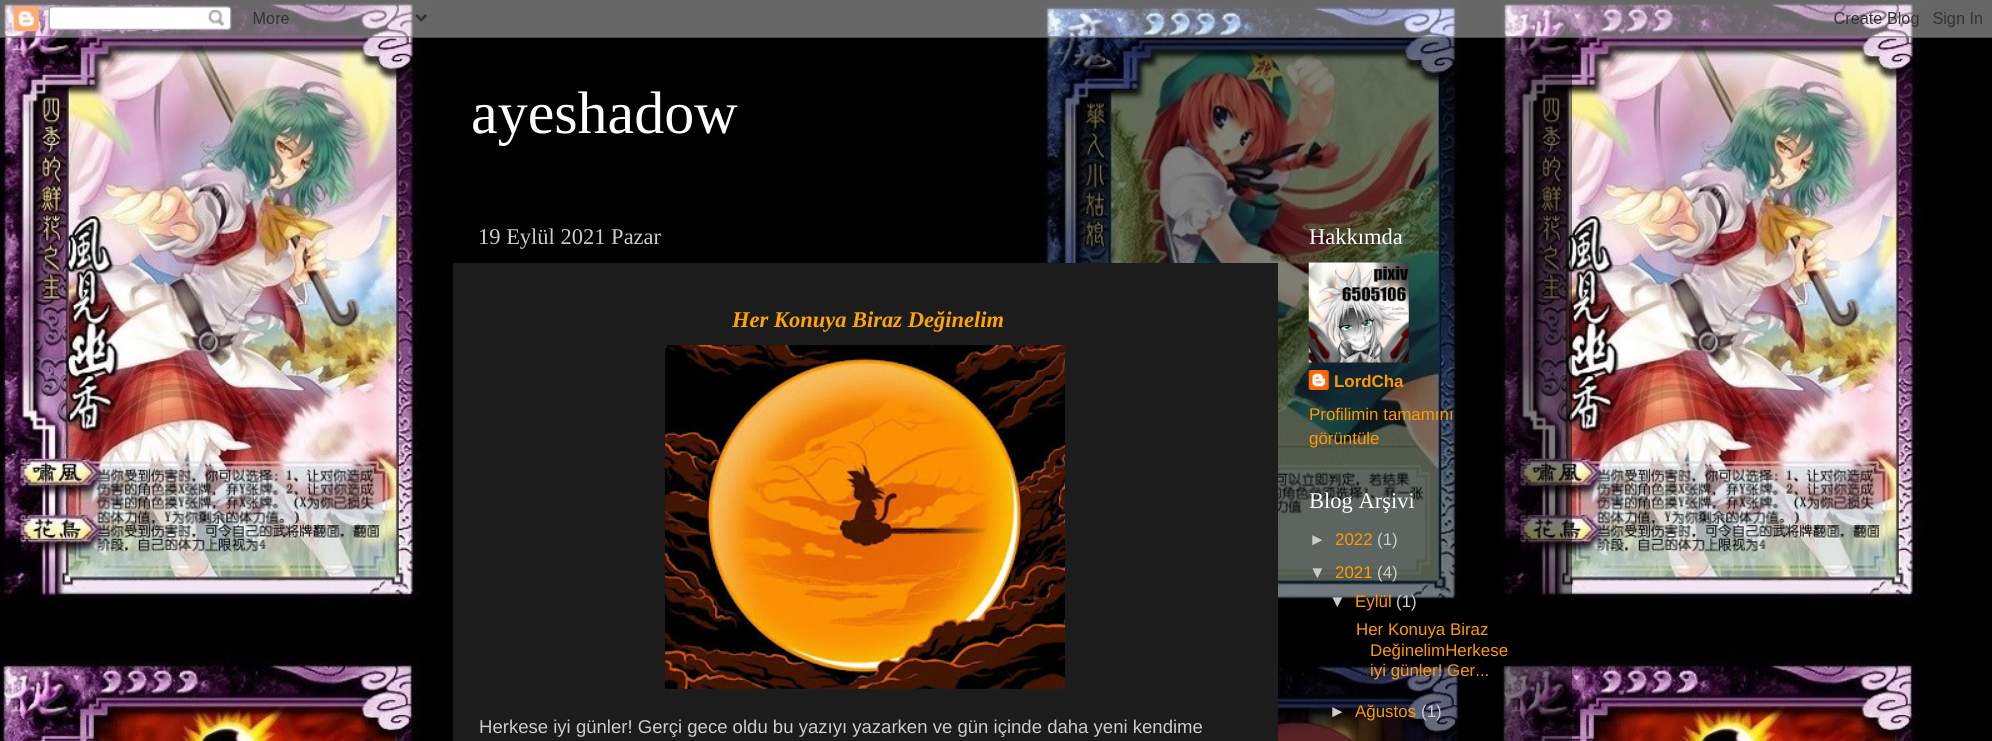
import math
import cairocffi as cairo

surface = cairo.ImageSurface(cairo.FORMAT_RGB24, 1992, 741)
cr = cairo.Context(surface)
options = cairo.FontOptions()
options.set_hint_metrics(cairo.HINT_METRICS_OFF)
options.set_hint_style(cairo.HINT_STYLE_NONE)
cr.set_font_options(options)
cr.set_miter_limit(4)


def use_color(code):
    cr.set_source_rgb(*(v / 255 for v in bytes.fromhex(code[-6:])))


def round_rect(x, y, w, h, r):
    cr.new_sub_path()
    for i, (u, v) in enumerate([(x + w - r, y + h - r), (x + r, y + h - r), (x + r, y + r), (x + w - r, y + r)]):
        cr.arc(u, v, r, i * math.pi / 2, (i + 1) * math.pi / 2)
    cr.close_path()


def shadow(x, y, w, h, r, blur, alpha):
    cr.push_group_with_content(cairo.CONTENT_ALPHA)
    cr.set_operator(cairo.OPERATOR_SOURCE)
    for i in range(15, -16, -2):
        e = blur * i / 6
        if min(w, h) + 2 * e > 0:
            cr.set_source_rgba(0, 0, 0, alpha * math.erfc((i - 1) / 8.5) / 2)
            round_rect(x - e, y - e, w + 2 * e, h + 2 * e, max(0, min(r + e + blur * .6, min(w, h) / 2 + e)))
            cr.fill()
    cr.mask(cr.pop_group())


def picture(path, x, y, w, h):
    cr.save()
    cr.set_source_surface(cairo.ImageSurface.create_from_png(path), x, y)
    cr.rectangle(x, y, w, h)
    cr.fill()
    cr.restore()


use_color("#ffffff")
cr.paint()
picture("img1.png", 0, 0, 1992, 741)
cr.save()
cr.set_fill_rule(cairo.FILL_RULE_EVEN_ODD)
cr.new_path()
cr.move_to(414, 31)
cr.line_to(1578, 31)
cr.line_to(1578, 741)
cr.line_to(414, 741)
cr.close_path()
cr.move_to(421, 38)
cr.line_to(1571, 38)
cr.line_to(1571, 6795)
cr.line_to(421, 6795)
cr.close_path()
cr.clip()
use_color("#000000")
shadow(421, 38, 1150, 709, 0, 2, 0.15)
cr.restore()
cr.set_source_rgba(0, 0, 0, 0.5)
cr.rectangle(1040, 37, 532, 704)
cr.fill()
picture("img2.png", 0, 0, 1992, 38)
cr.select_font_face("Liberation Serif")
cr.set_font_size(60)
use_color("#ffffff")
cr.move_to(471, 133)
cr.show_text("ayeshadow")
cr.set_font_size(22.5)
use_color("#cccccc")
cr.move_to(478, 244)
cr.show_text("19 Eylül 2021 Pazar")
use_color("#1c1c1c")
cr.rectangle(453, 263, 825, 478)
cr.fill()
cr.select_font_face("Liberation Serif", cairo.FONT_SLANT_ITALIC, cairo.FONT_WEIGHT_BOLD)
use_color("#ffa400")
cr.move_to(732, 327)
cr.show_text("Her Konuya Biraz Değinelim")
picture("img3.png", 665, 345, 400, 344)
cr.select_font_face("Liberation Sans")
cr.set_font_size(18.55)
use_color("#cccccc")
cr.move_to(479, 733)
cr.show_text("Herkese iyi günler! Gerçi gece oldu bu yazıyı yazarken ve gün içinde daha yeni kendime")
cr.select_font_face("Liberation Serif")
cr.set_font_size(22.5)
use_color("#ffffff")
cr.move_to(1309, 244)
cr.show_text("Hakkımda")
picture("img4.png", 1308, 262, 101, 101)
picture("img5.png", 1308, 370, 21, 20)
cr.select_font_face("Liberation Sans", cairo.FONT_SLANT_NORMAL, cairo.FONT_WEIGHT_BOLD)
cr.set_font_size(16.9)
use_color("#ff9900")
cr.move_to(1334, 387)
cr.show_text("LordCha")
cr.select_font_face("Liberation Sans")
cr.move_to(1309, 420)
cr.show_text("Profilimin tamamını")
cr.move_to(1309, 444)
cr.show_text("görüntüle")
cr.select_font_face("Liberation Serif")
cr.set_font_size(22.5)
use_color("#ffffff")
cr.move_to(1309, 508)
cr.show_text("Blog Arşivi")
cr.select_font_face("Liberation Sans")
cr.set_font_size(16.9)
use_color("#cccccc")
cr.move_to(1309, 545)
cr.show_text("►")
use_color("#ff9900")
cr.move_to(1335, 545)
cr.show_text("2022")
use_color("#cccccc")
cr.move_to(1377, 545)
cr.show_text("(1)")
cr.move_to(1309, 578)
cr.show_text("▼")
use_color("#ff9900")
cr.move_to(1335, 578)
cr.show_text("2021")
use_color("#cccccc")
cr.move_to(1377, 578)
cr.show_text("(4)")
cr.move_to(1329, 607)
cr.show_text("▼")
use_color("#ff9900")
cr.move_to(1355, 607)
cr.show_text("Eylül")
use_color("#cccccc")
cr.move_to(1396, 607)
cr.show_text("(1)")
use_color("#ff9900")
cr.move_to(1356, 635)
cr.show_text("Her Konuya Biraz")
cr.move_to(1370, 656)
cr.show_text("DeğinelimHerkese")
cr.move_to(1370, 676)
cr.show_text("iyi günler! Ger...")
use_color("#cccccc")
cr.move_to(1329, 717)
cr.show_text("►")
use_color("#ff9900")
cr.move_to(1355, 717)
cr.show_text("Ağustos")
use_color("#cccccc")
cr.move_to(1421, 717)
cr.show_text("(1)")
surface.write_to_png("result.png")
